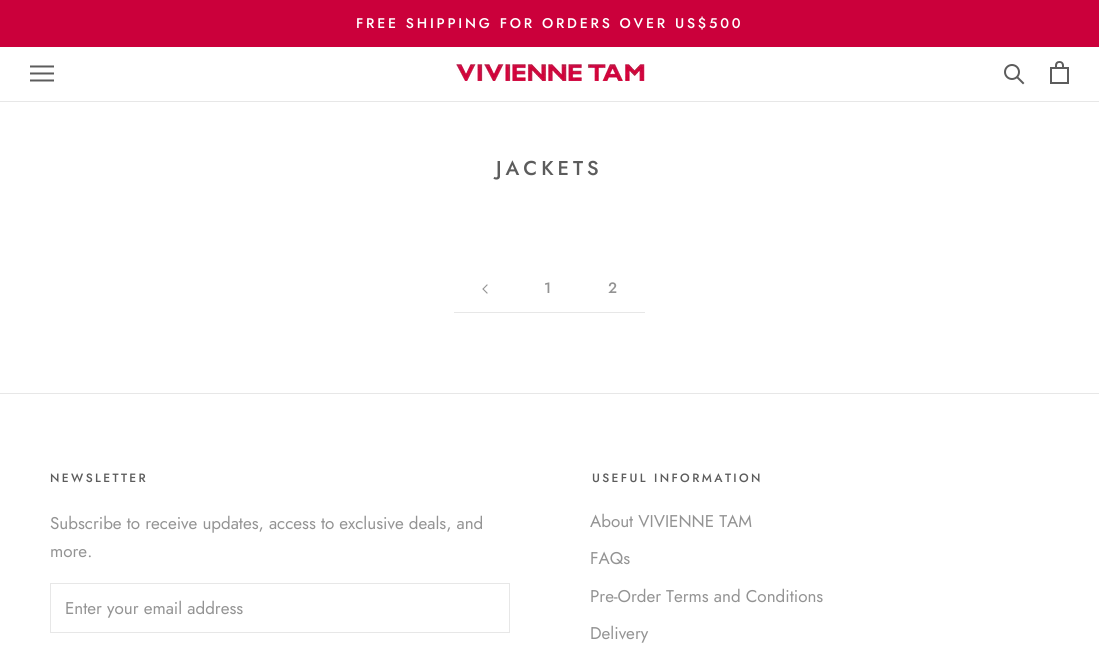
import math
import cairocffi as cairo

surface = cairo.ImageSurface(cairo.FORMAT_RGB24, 1099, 650)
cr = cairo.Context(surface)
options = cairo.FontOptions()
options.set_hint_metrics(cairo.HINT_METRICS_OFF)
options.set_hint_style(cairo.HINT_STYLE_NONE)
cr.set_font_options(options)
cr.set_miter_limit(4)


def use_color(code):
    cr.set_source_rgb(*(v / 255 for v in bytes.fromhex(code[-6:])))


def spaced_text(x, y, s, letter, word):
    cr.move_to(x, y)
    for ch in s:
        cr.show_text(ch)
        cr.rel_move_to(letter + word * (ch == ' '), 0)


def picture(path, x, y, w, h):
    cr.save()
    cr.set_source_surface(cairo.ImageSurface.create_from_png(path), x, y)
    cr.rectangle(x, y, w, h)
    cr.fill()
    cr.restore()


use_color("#ffffff")
cr.paint()
use_color("#cb003b")
cr.rectangle(0, 0, 1099, 47)
cr.fill()
cr.select_font_face("Jost Medium")
cr.set_font_size(14)
use_color("#ffffff")
spaced_text(356, 28, "FREE SHIPPING FOR ORDERS OVER US$500", 2.8, 0)
use_color("#e7e7e7")
cr.rectangle(0, 101, 1099, 1)
cr.fill()
picture("img1.png", 30, 65, 24, 17)
picture("img2.png", 456, 64, 189, 17)
cr.new_path()
cr.move_to(1023, 83)
cr.line_to(1017.5, 77.5)
use_color("#5c5c5c")
cr.set_line_cap(cairo.LINE_CAP_SQUARE)
cr.stroke()
cr.arc(1012, 72, 7, 0, 2 * math.pi)
cr.set_line_cap(cairo.LINE_CAP_BUTT)
cr.stroke()
picture("img3.png", 1050, 61, 19, 23)
cr.set_font_size(20)
spaced_text(496, 175, "JACKETS", 4, 0)
cr.set_font_size(15)
use_color("#939393")
cr.move_to(544, 293)
cr.show_text("1")
cr.move_to(608, 293)
cr.show_text("2")
use_color("#e7e7e7")
cr.rectangle(454, 312, 191, 1)
cr.fill()
cr.new_path()
cr.move_to(487, 285)
cr.line_to(483, 289)
cr.line_to(487, 293)
use_color("#939393")
cr.set_line_width(1.1)
cr.set_line_cap(cairo.LINE_CAP_SQUARE)
cr.stroke()
use_color("#e7e7e7")
cr.rectangle(0, 393, 1099, 1)
cr.fill()
cr.set_font_size(12)
use_color("#5c5c5c")
spaced_text(50, 482, "NEWSLETTER", 2.4, 0)
cr.select_font_face("Jost")
cr.set_font_size(17)
use_color("#939393")
cr.move_to(50, 529)
cr.show_text("Subscribe to receive updates, access to exclusive deals, and")
cr.move_to(50, 557)
cr.show_text("more.")
cr.rectangle(50.5, 583.5, 459, 49)
use_color("#e7e7e7")
cr.set_line_width(1)
cr.set_line_cap(cairo.LINE_CAP_BUTT)
cr.stroke()
use_color("#939393")
cr.move_to(65, 614)
cr.show_text("Enter your email address")
cr.select_font_face("Jost Medium")
cr.set_font_size(12)
use_color("#5c5c5c")
spaced_text(592, 482, "USEFUL INFORMATION", 2.4, 0)
cr.select_font_face("Jost")
cr.set_font_size(17)
use_color("#939393")
cr.move_to(590, 527)
cr.show_text("About VIVIENNE TAM")
cr.move_to(590, 564)
cr.show_text("FAQs")
cr.move_to(590, 602)
cr.show_text("Pre-Order Terms and Conditions")
cr.move_to(590, 639)
cr.show_text("Delivery")
surface.write_to_png("result.png")
